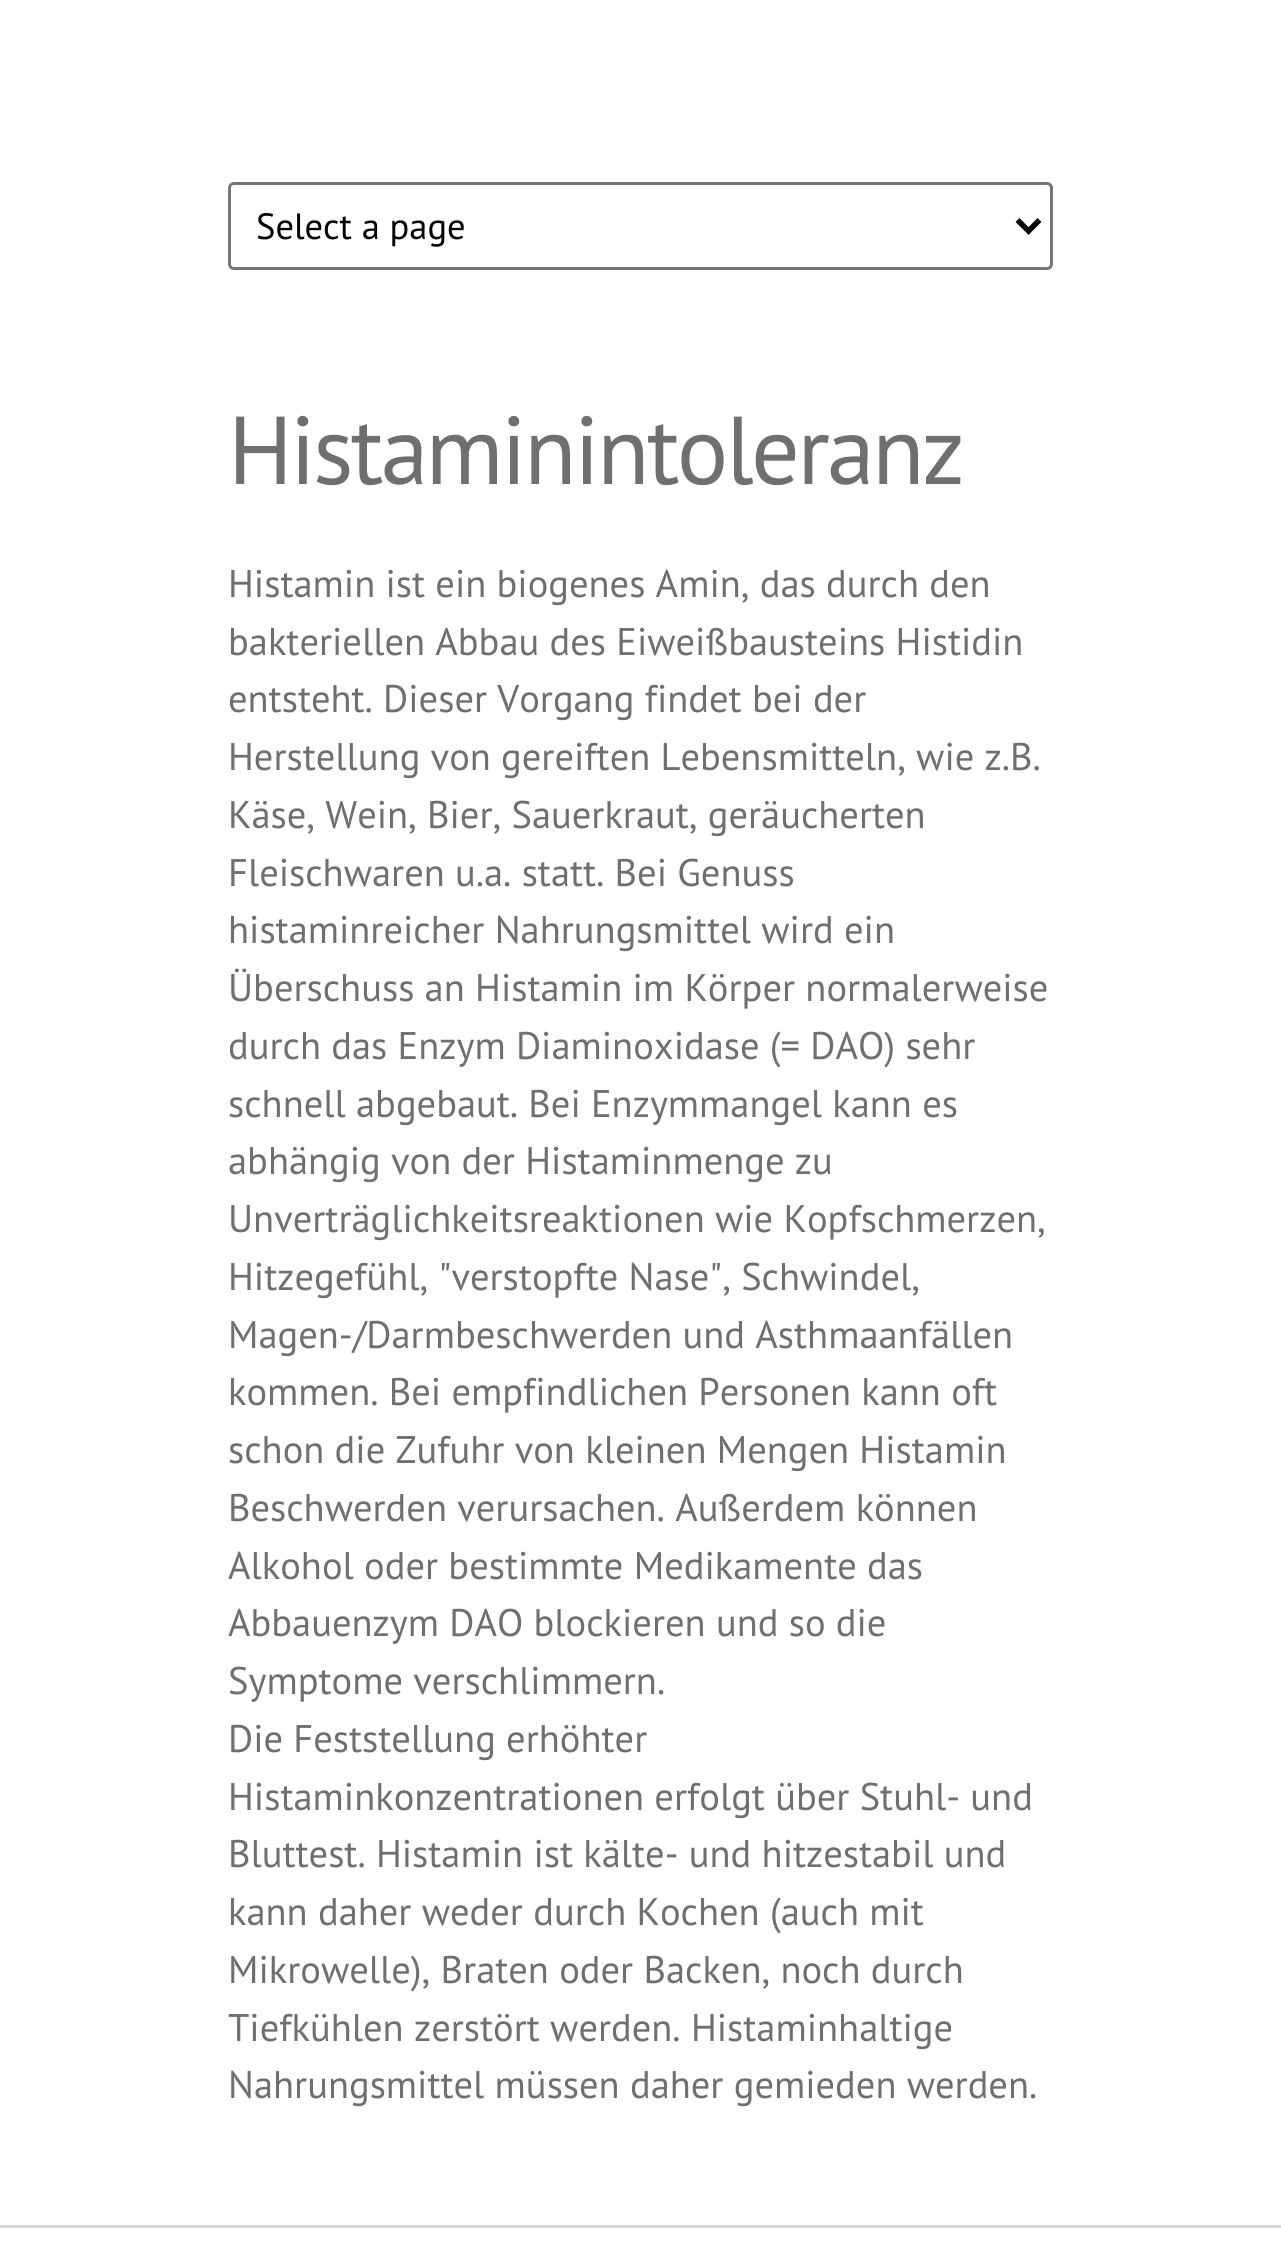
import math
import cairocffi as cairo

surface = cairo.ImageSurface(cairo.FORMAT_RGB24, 1281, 2256)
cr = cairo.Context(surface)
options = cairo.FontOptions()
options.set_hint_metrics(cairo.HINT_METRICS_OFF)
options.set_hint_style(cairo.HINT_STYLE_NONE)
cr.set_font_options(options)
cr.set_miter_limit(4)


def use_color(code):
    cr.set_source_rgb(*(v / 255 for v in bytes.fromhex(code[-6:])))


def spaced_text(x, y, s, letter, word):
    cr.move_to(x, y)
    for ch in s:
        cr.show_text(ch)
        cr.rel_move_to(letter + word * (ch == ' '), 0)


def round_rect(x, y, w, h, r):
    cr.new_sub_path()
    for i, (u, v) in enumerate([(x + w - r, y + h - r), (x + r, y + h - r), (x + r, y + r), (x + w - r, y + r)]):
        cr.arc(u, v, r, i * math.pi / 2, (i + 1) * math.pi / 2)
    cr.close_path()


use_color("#ffffff")
cr.paint()
round_rect(229.5, 183.5, 822, 85, 4.5)
use_color("#767676")
cr.set_line_width(3)
cr.stroke()
cr.new_path()
cr.move_to(1017.5, 220)
cr.line_to(1028.5, 231)
cr.line_to(1039.5, 220)
use_color("#000000")
cr.set_line_width(5.5)
cr.stroke()
cr.select_font_face("PT Sans")
cr.set_font_size(36.5)
cr.move_to(256, 239)
cr.show_text("Select a page")
cr.set_font_size(96.25)
use_color("#6d6f71")
spaced_text(228, 484, "Histaminintoleranz", -2.75, 0)
cr.set_font_size(38.5)
cr.move_to(228, 597)
cr.show_text("Histamin ist ein biogenes Amin, das durch den")
cr.move_to(228, 655)
cr.show_text("bakteriellen Abbau des Eiweißbausteins Histidin")
cr.move_to(228, 712)
cr.show_text("entsteht. Dieser Vorgang findet bei der")
cr.move_to(228, 770)
cr.show_text("Herstellung von gereiften Lebensmitteln, wie z.B.")
cr.move_to(228, 828)
cr.show_text("Käse, Wein, Bier, Sauerkraut, geräucherten")
cr.move_to(228, 886)
cr.show_text("Fleischwaren u.a. statt. Bei Genuss")
cr.move_to(228, 943)
cr.show_text("histaminreicher Nahrungsmittel wird ein")
cr.move_to(228, 1001)
cr.show_text("Überschuss an Histamin im Körper normalerweise")
cr.move_to(228, 1059)
cr.show_text("durch das Enzym Diaminoxidase (= DAO) sehr")
cr.move_to(228, 1117)
cr.show_text("schnell abgebaut. Bei Enzymmangel kann es")
cr.move_to(228, 1174)
cr.show_text("abhängig von der Histaminmenge zu")
cr.move_to(228, 1232)
cr.show_text("Unverträglichkeitsreaktionen wie Kopfschmerzen,")
cr.move_to(228, 1290)
cr.show_text("Hitzegefühl, \"verstopfte Nase\", Schwindel,")
cr.move_to(228, 1348)
cr.show_text("Magen-/Darmbeschwerden und Asthmaanfällen")
cr.move_to(228, 1405)
cr.show_text("kommen. Bei empfindlichen Personen kann oft")
cr.move_to(228, 1463)
cr.show_text("schon die Zufuhr von kleinen Mengen Histamin")
cr.move_to(228, 1521)
cr.show_text("Beschwerden verursachen. Außerdem können")
cr.move_to(228, 1579)
cr.show_text("Alkohol oder bestimmte Medikamente das")
cr.move_to(228, 1636)
cr.show_text("Abbauenzym DAO blockieren und so die")
cr.move_to(228, 1694)
cr.show_text("Symptome verschlimmern.")
cr.move_to(228, 1752)
cr.show_text("Die Feststellung erhöhter")
cr.move_to(228, 1810)
cr.show_text("Histaminkonzentrationen erfolgt über Stuhl- und")
cr.move_to(228, 1867)
cr.show_text("Bluttest. Histamin ist kälte- und hitzestabil und")
cr.move_to(228, 1925)
cr.show_text("kann daher weder durch Kochen (auch mit")
cr.move_to(228, 1983)
cr.show_text("Mikrowelle), Braten oder Backen, noch durch")
cr.move_to(228, 2041)
cr.show_text("Tiefkühlen zerstört werden. Histaminhaltige")
cr.move_to(228, 2098)
cr.show_text("Nahrungsmittel müssen daher gemieden werden.")
use_color("#d6d6d6")
cr.rectangle(0, 2225, 1281, 3)
cr.fill()
surface.write_to_png("result.png")
